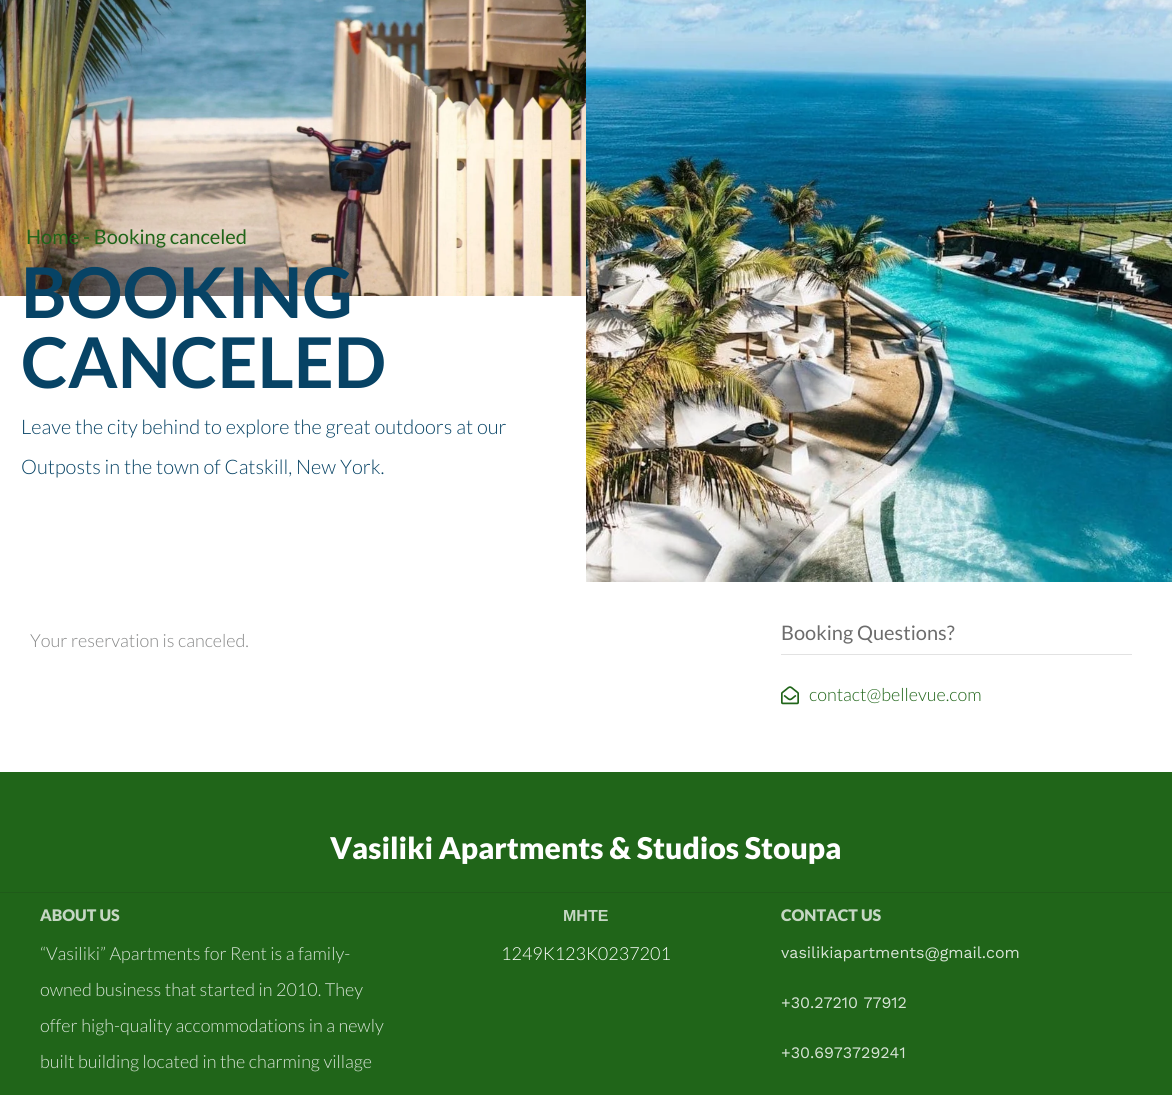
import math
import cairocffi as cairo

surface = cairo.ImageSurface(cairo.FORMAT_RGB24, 1172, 1095)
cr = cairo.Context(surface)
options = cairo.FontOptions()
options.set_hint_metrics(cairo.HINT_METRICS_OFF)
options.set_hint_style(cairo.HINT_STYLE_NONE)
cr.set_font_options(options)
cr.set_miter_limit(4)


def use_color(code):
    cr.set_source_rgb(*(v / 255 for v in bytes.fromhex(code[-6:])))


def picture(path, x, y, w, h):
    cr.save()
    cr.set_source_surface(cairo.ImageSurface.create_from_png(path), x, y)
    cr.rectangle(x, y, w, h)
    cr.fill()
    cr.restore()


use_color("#ffffff")
cr.paint()
picture("img1.png", 0, 0, 586, 296)
cr.select_font_face("Lato")
cr.set_font_size(20)
use_color("#206519")
cr.move_to(26, 244)
cr.show_text("Home - Booking canceled")
cr.select_font_face("Lato", cairo.FONT_SLANT_NORMAL, cairo.FONT_WEIGHT_BOLD)
cr.set_font_size(70)
use_color("#074365")
cr.move_to(21, 318)
cr.show_text("BOOKING")
cr.move_to(21, 388)
cr.show_text("CANCELED")
cr.select_font_face("Lato Light")
cr.set_font_size(20)
cr.move_to(21, 434)
cr.show_text("Leave the city behind to explore the great outdoors at our")
cr.move_to(21, 474)
cr.show_text("Outposts in the town of Catskill, New York.")
picture("img2.png", 586, 0, 586, 582)
cr.set_font_size(18)
use_color("#868787")
cr.move_to(30, 647)
cr.show_text("Your reservation is canceled.")
use_color("#e2e2e2")
cr.rectangle(781, 654, 351, 1)
cr.fill()
cr.select_font_face("Lato")
cr.set_font_size(20)
use_color("#6d6d6d")
cr.move_to(781, 640)
cr.show_text("Booking Questions?")
picture("img3.png", 781, 686, 18, 19)
cr.select_font_face("Lato Light")
cr.set_font_size(18)
use_color("#206519")
cr.move_to(809, 701)
cr.show_text("contact@bellevue.com")
cr.rectangle(0, 772, 1172, 120)
cr.fill()
cr.select_font_face("Lato Black")
cr.set_font_size(30)
use_color("#ffffff")
cr.move_to(330, 859)
cr.show_text("Vasiliki Apartments & Studios Stoupa")
use_color("#206519")
cr.rectangle(0, 893, 1172, 202)
cr.fill()
use_color("#1f5b19")
cr.rectangle(0, 892, 1172, 1)
cr.fill()
cr.set_font_size(16)
use_color("#c5d7c3")
cr.move_to(40, 921)
cr.show_text("ABOUT US")
cr.select_font_face("Lato Light")
cr.set_font_size(18)
use_color("#d7e3d6")
cr.move_to(40, 960)
cr.show_text("“Vasiliki” Apartments for Rent is a family-")
cr.move_to(40, 996)
cr.show_text("owned business that started in 2010. They")
cr.move_to(40, 1032)
cr.show_text("offer high-quality accommodations in a newly")
cr.move_to(40, 1068)
cr.show_text("built building located in the charming village")
cr.select_font_face("Liberation Sans", cairo.FONT_SLANT_NORMAL, cairo.FONT_WEIGHT_BOLD)
cr.set_font_size(16)
use_color("#c5d7c3")
cr.move_to(563, 921)
cr.show_text("ΜΗΤΕ")
cr.select_font_face("Lato Light")
cr.set_font_size(18)
use_color("#ffffff")
cr.move_to(501, 960)
cr.show_text("1249K123K0237201")
cr.select_font_face("Lato Black")
cr.set_font_size(16)
use_color("#c5d7c3")
cr.move_to(781, 921)
cr.show_text("CONTACT US")
cr.select_font_face("Work Sans")
use_color("#d7e3d6")
cr.move_to(781, 958)
cr.show_text("vasilikiapartments@gmail.com")
cr.move_to(781, 1008)
cr.show_text("+30.27210 77912")
cr.move_to(781, 1058)
cr.show_text("+30.6973729241")
surface.write_to_png("result.png")
